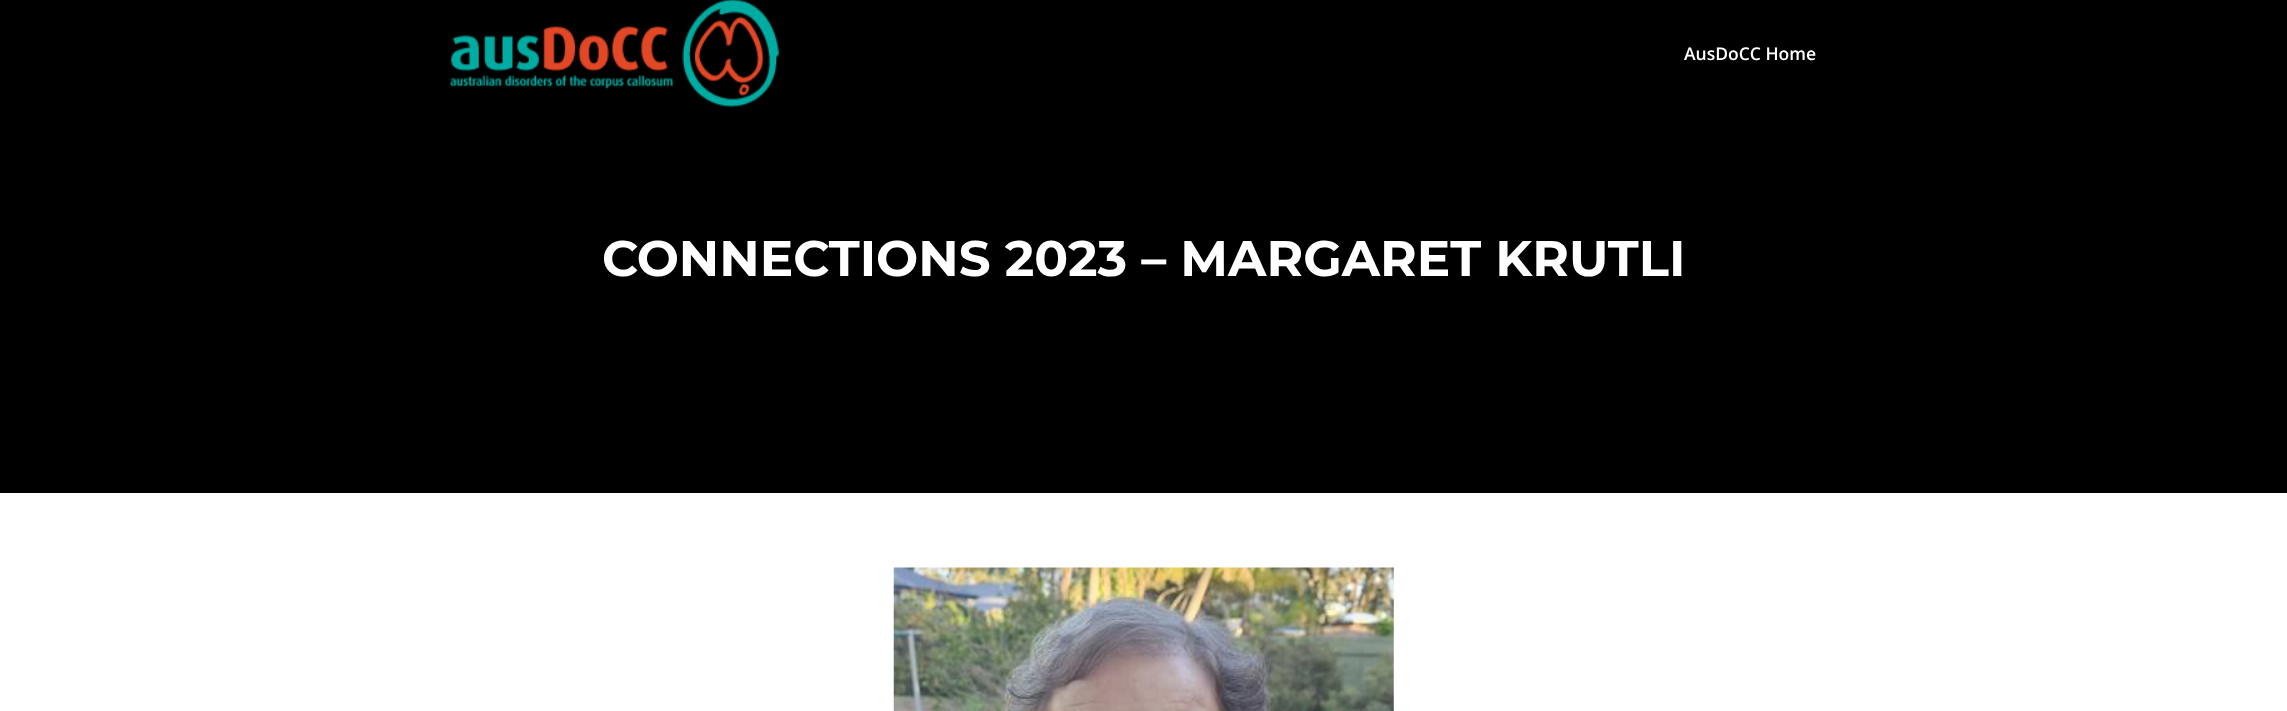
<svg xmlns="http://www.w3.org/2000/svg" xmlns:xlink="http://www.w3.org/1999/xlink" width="2287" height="711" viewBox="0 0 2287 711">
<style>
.cls-1{font:600 17.5px Open Sans;fill:#ffffff}
.cls-2{font:bold 50px Montserrat;fill:#ffffff}
</style>
<rect width="100%" height="100%" fill="#ffffff"/>
<rect fill="#000000" x="0" y="0" width="2287" height="493"/>
<image xlink:href="image0.png" x="450" y="0" width="329" height="108"/>
<image xlink:href="image1.png" x="893" y="567" width="501" height="144"/>
<text class="cls-1" x="1684" y="60">AusDoCC Home</text>
<text class="cls-2" x="602" y="276">CONNECTIONS 2023 – MARGARET KRUTLI</text>
</svg>
